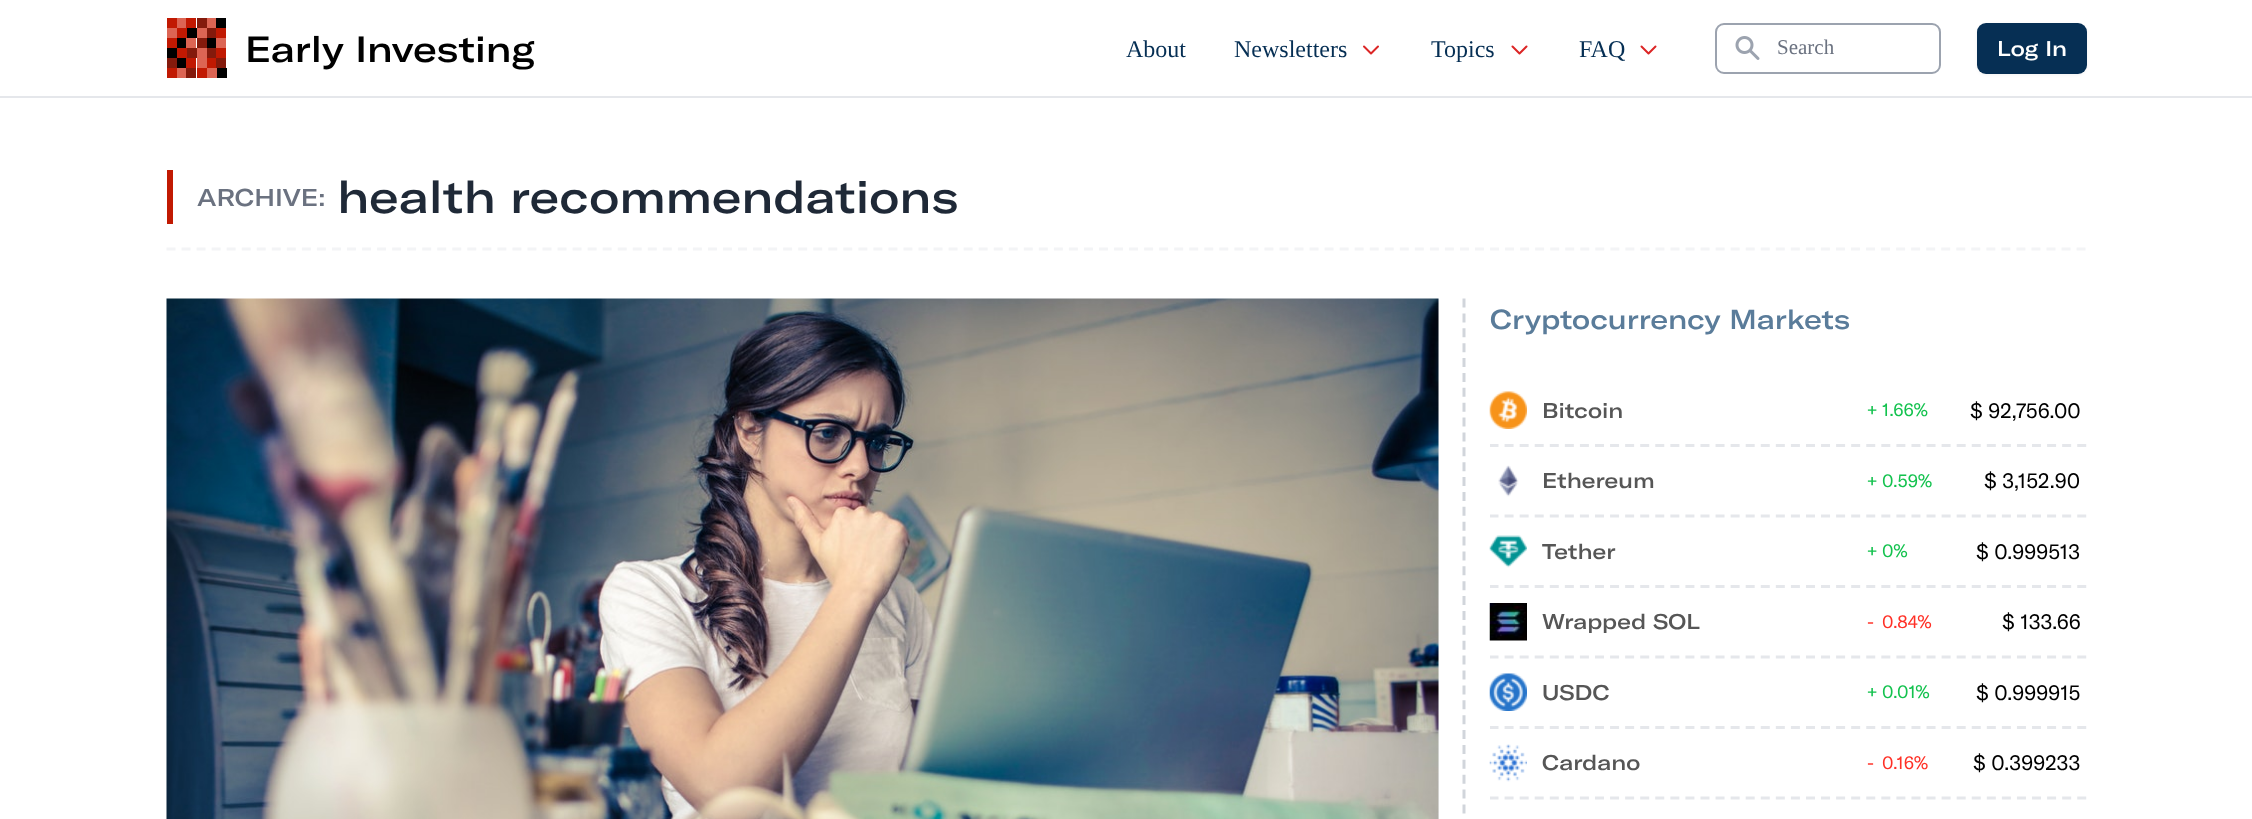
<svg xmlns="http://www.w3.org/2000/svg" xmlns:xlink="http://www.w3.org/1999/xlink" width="2252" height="819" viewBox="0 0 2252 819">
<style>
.cls-1{font:500 36px GT America;fill:#000000}
.cls-2{font:24px Liberation Serif;fill:#062f54}
.cls-3{font:21px Liberation Serif;fill:#6b7280}
.cls-4{font:500 21px GT America;fill:#ffffff}
.cls-5{font:500 24px GT America;fill:#6b7280}
.cls-6{font:500 45px GT America;fill:#1f2937}
.cls-7{font:500 27px GT America;fill:#5a7c9a}
.cls-8{font:500 21px GT America;fill:#565656}
.cls-9{font:18px GT America;fill:#13c24e}
.cls-10{font:21px GT America;fill:#000000}
.cls-11{font:18px GT America;fill:#ff3026}
</style>
<defs>
<clipPath id="clip1"><rect x="1490" y="377" width="597" height="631" rx="8"/></clipPath>
</defs>
<rect width="100%" height="100%" fill="#ffffff"/>
<rect fill="#e5e7eb" x="0" y="96" width="2252" height="2"/>
<image xlink:href="image0.png" x="167" y="18" width="60" height="60"/>
<path fill="none" stroke="#dc2626" stroke-width="2" stroke-linecap="round" stroke-linejoin="round" d="M1378 46.5L1371 53.5L1364 46.5"/>
<path fill="none" stroke="#dc2626" stroke-width="2" stroke-linecap="round" stroke-linejoin="round" d="M1526.5 46.5L1519.5 53.5L1512.5 46.5"/>
<path fill="none" stroke="#dc2626" stroke-width="2" stroke-linecap="round" stroke-linejoin="round" d="M1655.5 46.5L1648.5 53.5L1641.5 46.5"/>
<rect fill="none" stroke="#9ca3af" stroke-width="2" x="1716" y="24" width="224" height="49" rx="8"/>
<image xlink:href="image1.png" x="1735" y="36" width="25" height="24"/>
<rect fill="#000000" fill-opacity="0.05" filter="blur(1.5px)" x="1977" y="24" width="110" height="51" rx="9"/>
<rect fill="#062f54" x="1977" y="23" width="110" height="51" rx="9"/>
<path fill="none" stroke="#f3f4f6" stroke-width="3" stroke-dasharray="9 6.04" d="M166.5 249H2086.5"/>
<rect fill="#c11902" x="167" y="170" width="6" height="54"/>
<rect fill="#f3f4f6" x="1438" y="299" width="1" height="520"/>
<image xlink:href="image2.png" x="166" y="298" width="1273" height="521"/>
<path fill="none" stroke="#d1d5db" stroke-width="3" stroke-dasharray="9 5.88" d="M1464 298.5V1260"/>
<g clip-path="url(#clip1)">
<path fill="none" stroke="#e5e7eb" stroke-width="3" stroke-dasharray="9 6.07" d="M1489.5 445.5H2086.5"/>
</g>
<image xlink:href="image3.png" x="1489" y="391" width="38" height="38"/>
<g clip-path="url(#clip1)">
<path fill="none" stroke="#e5e7eb" stroke-width="3" stroke-dasharray="9 6.07" d="M1489.5 516H2086.5"/>
</g>
<image xlink:href="image4.png" x="1498" y="465" width="21" height="32"/>
<g clip-path="url(#clip1)">
<path fill="none" stroke="#e5e7eb" stroke-width="3" stroke-dasharray="9 6.07" d="M1489.5 586.5H2086.5"/>
</g>
<image xlink:href="image5.png" x="1489" y="535" width="38" height="33"/>
<g clip-path="url(#clip1)">
<path fill="none" stroke="#e5e7eb" stroke-width="3" stroke-dasharray="9 6.07" d="M1489.5 657H2086.5"/>
</g>
<image xlink:href="image6.png" x="1489" y="603" width="38" height="38"/>
<g clip-path="url(#clip1)">
<path fill="none" stroke="#e5e7eb" stroke-width="3" stroke-dasharray="9 6.07" d="M1489.5 727.5H2086.5"/>
</g>
<image xlink:href="image7.png" x="1489" y="673" width="38" height="38"/>
<g clip-path="url(#clip1)">
<path fill="none" stroke="#e5e7eb" stroke-width="3" stroke-dasharray="9 6.07" d="M1489.5 798H2086.5"/>
</g>
<image xlink:href="image8.png" x="1489" y="744" width="38" height="38"/>
<text class="cls-1" x="245" y="62">Early Investing</text>
<text class="cls-2" x="1126" y="57">About</text>
<text class="cls-2" x="1234" y="57">Newsletters</text>
<text class="cls-2" x="1431" y="57">Topics</text>
<text class="cls-2" x="1579" y="57">FAQ</text>
<text class="cls-3" x="1777" y="54">Search</text>
<text class="cls-4" x="1997" y="56">Log In</text>
<text class="cls-5" x="197" y="206">ARCHIVE:</text>
<text class="cls-6" x="337" y="213">health recommendations</text>
<text class="cls-7" x="1490" y="329">Cryptocurrency Markets</text>
<text class="cls-8" x="1542" y="418">Bitcoin</text>
<text class="cls-9" x="1867" y="416">+</text>
<text class="cls-9" x="1882" y="416">1.66%</text>
<text class="cls-10" x="1970" y="418">$ 92,756.00</text>
<text class="cls-8" x="1542" y="488">Ethereum</text>
<text class="cls-9" x="1867" y="487">+</text>
<text class="cls-9" x="1882" y="487">0.59%</text>
<text class="cls-10" x="1984" y="488">$ 3,152.90</text>
<text class="cls-8" x="1542" y="559">Tether</text>
<text class="cls-9" x="1867" y="557">+</text>
<text class="cls-9" x="1882" y="557">0%</text>
<text class="cls-10" x="1976" y="559">$ 0.999513</text>
<text class="cls-8" x="1542" y="629">Wrapped SOL</text>
<text class="cls-11" x="1867" y="628">-</text>
<text class="cls-11" x="1882" y="628">0.84%</text>
<text class="cls-10" x="2002" y="629">$ 133.66</text>
<text class="cls-8" x="1542" y="700">USDC</text>
<text class="cls-9" x="1867" y="698">+</text>
<text class="cls-9" x="1882" y="698">0.01%</text>
<text class="cls-10" x="1976" y="700">$ 0.999915</text>
<text class="cls-8" x="1542" y="770">Cardano</text>
<text class="cls-11" x="1867" y="769">-</text>
<text class="cls-11" x="1882" y="769">0.16%</text>
<text class="cls-10" x="1973" y="770">$ 0.399233</text>
</svg>
